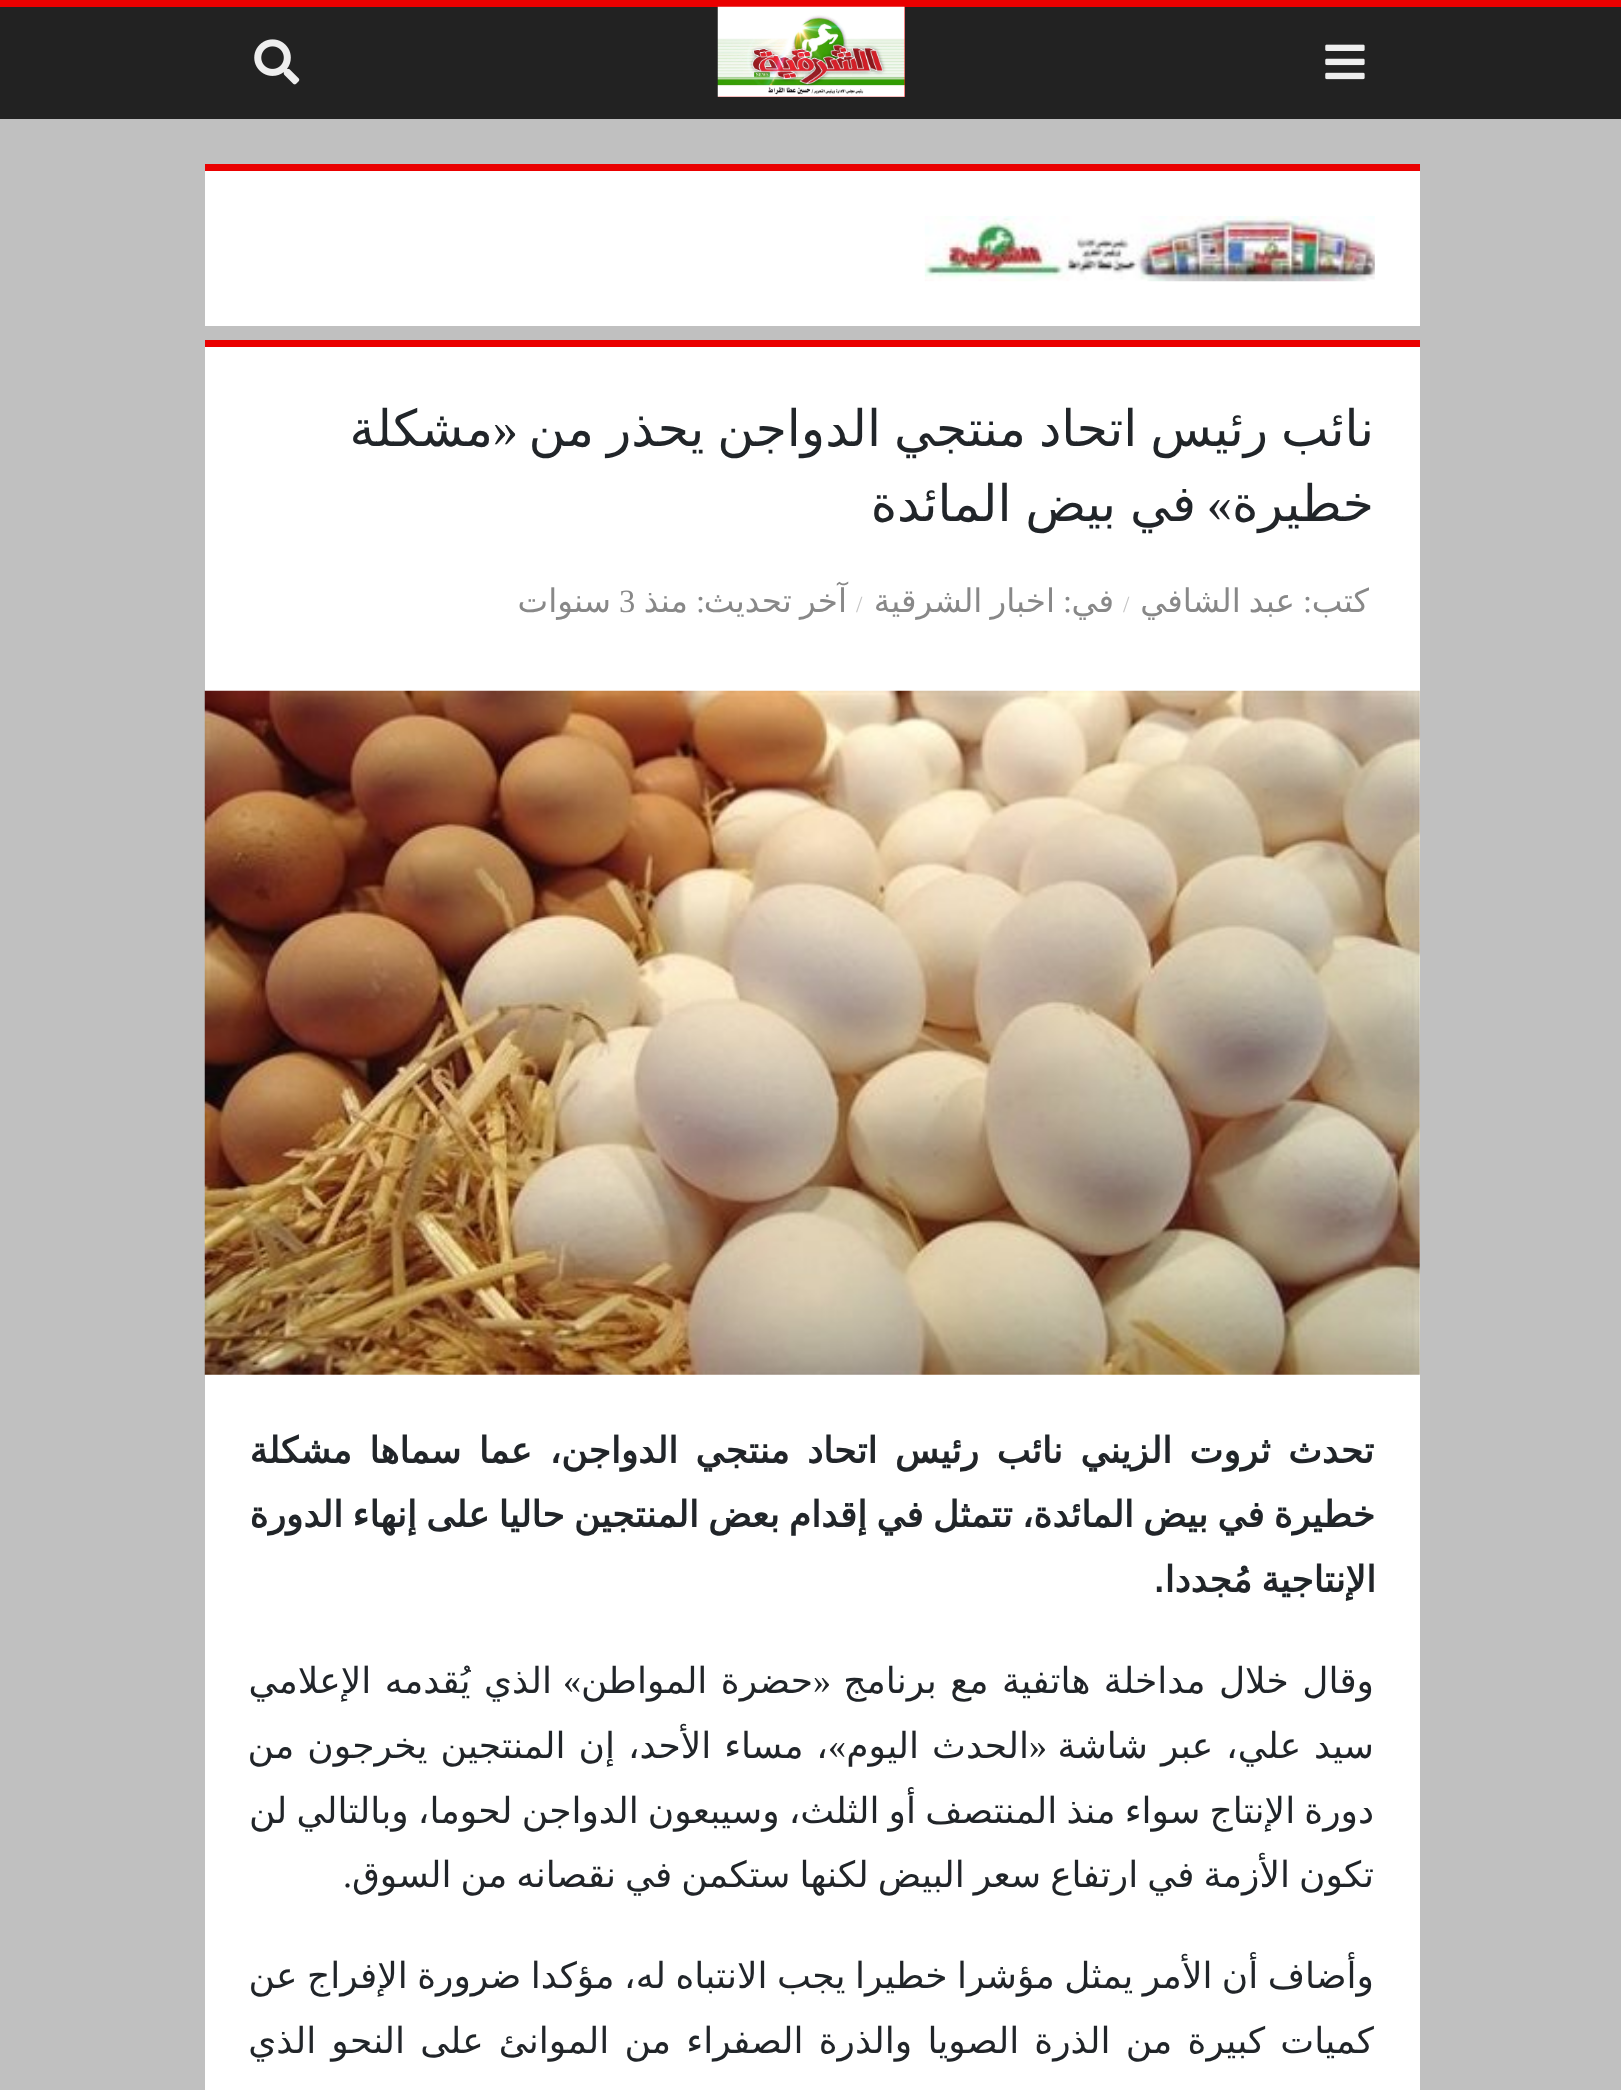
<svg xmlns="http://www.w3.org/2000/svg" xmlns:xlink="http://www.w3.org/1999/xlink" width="1621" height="2090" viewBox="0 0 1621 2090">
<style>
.cls-1{font:50.4px DejaVu Sans;direction:rtl;fill:#212529}
.cls-2{font:50.4px Liberation Serif;direction:rtl;fill:#212529}
.cls-3{font:32.5px DejaVu Sans;direction:rtl;fill:#888888}
.cls-4{font:32.5px Liberation Serif;fill:#888888}
.cls-5{font:23px Liberation Serif;fill:#c4c4c4}
.cls-6{font:bold 36px DejaVu Sans;direction:rtl;fill:#212529}
.cls-7{font:36px DejaVu Sans;direction:rtl;fill:#212529}
.cls-8{font:36px Liberation Serif;direction:rtl;fill:#212529}
</style>
<rect width="100%" height="100%" fill="#c0c0c0"/>
<rect fill="#222222" x="0" y="7" width="1621" height="112"/>
<rect fill="#ea0000" x="0" y="0" width="1621" height="7"/>
<image xlink:href="image0.png" x="1325" y="44" width="40" height="36"/>
<rect fill="#ea0000" x="718" y="7" width="187" height="90"/>
<image xlink:href="image1.png" x="717" y="6" width="188" height="91"/>
<image xlink:href="image2.png" x="254" y="39" width="46" height="46"/>
<rect fill="#ffffff" x="205" y="171" width="1215" height="155"/>
<rect fill="#ea0000" x="205" y="164" width="1215" height="7"/>
<image xlink:href="image3.png" x="924" y="216" width="451" height="66"/>
<rect fill="#ffffff" x="205" y="347" width="1215" height="1743"/>
<rect fill="#ea0000" x="205" y="340" width="1215" height="7"/>
<image xlink:href="image4.png" x="204" y="690" width="1216" height="685"/>
<text class="cls-1" x="1374" y="446" word-spacing="-3">نائب رئيس اتحاد منتجي الدواجن يحذر من</text>
<text class="cls-2" x="518" y="446">«</text>
<text class="cls-1" x="493" y="446">مشكلة</text>
<text class="cls-1" x="1374" y="521">خطيرة</text>
<text class="cls-2" x="1232" y="521">»</text>
<text class="cls-1" x="1196" y="521" word-spacing="-2.25">في بيض المائدة</text>
<text class="cls-3" x="1369" y="612">كتب</text>
<text class="cls-4" x="1303" y="612">:</text>
<text class="cls-3" x="1295" y="612" word-spacing="-2.25">عبد الشافي</text>
<text class="cls-5" x="1123" y="612">/</text>
<text class="cls-3" x="1114" y="612">في</text>
<text class="cls-4" x="1063" y="612">:</text>
<text class="cls-3" x="1055" y="612" word-spacing="-2.25">اخبار الشرقية</text>
<text class="cls-5" x="856" y="612">/</text>
<text class="cls-3" x="847" y="612" word-spacing="-2.25">آخر تحديث</text>
<text class="cls-4" x="696" y="612">:</text>
<text class="cls-3" x="688" y="612">منذ</text>
<text class="cls-4" x="619" y="612">3</text>
<text class="cls-3" x="611" y="612">سنوات</text>
<text class="cls-6" x="1374" y="1463" word-spacing="6">تحدث ثروت الزيني نائب رئيس اتحاد منتجي الدواجن، عما سماها مشكلة</text>
<text class="cls-6" x="1375" y="1527" word-spacing="-2.25">خطيرة في بيض المائدة، تتمثل في إقدام بعض المنتجين حاليا على إنهاء الدورة</text>
<text class="cls-6" x="1376" y="1592" word-spacing="-2.25">الإنتاجية مُجددا.</text>
<text class="cls-7" x="1374" y="1693" word-spacing="2">وقال خلال مداخلة هاتفية مع برنامج</text>
<text class="cls-8" x="831" y="1693">«</text>
<text class="cls-7" x="813" y="1693" word-spacing="2">حضرة المواطن</text>
<text class="cls-8" x="581" y="1693">»</text>
<text class="cls-7" x="552" y="1693" word-spacing="2">الذي يُقدمه الإعلامي</text>
<text class="cls-7" x="1374" y="1758" word-spacing="1.5">سيد علي، عبر شاشة</text>
<text class="cls-8" x="1047" y="1758">«</text>
<text class="cls-7" x="1029" y="1758" word-spacing="1.5">الحدث اليوم</text>
<text class="cls-8" x="846" y="1758">»</text>
<text class="cls-7" x="828" y="1758" word-spacing="1.5">، مساء الأحد، إن المنتجين يخرجون من</text>
<text class="cls-7"><tspan x="1374" y="1823" word-spacing="-2.25">دورة الإنتاج سواء منذ المنتصف أو الثلث، وسيبعون الدواجن لحوما، وبالتالي لن</tspan><tspan x="1374" y="1887" word-spacing="-2.4">تكون الأزمة في ارتفاع سعر البيض لكنها ستكمن في نقصانه من السوق</tspan></text>
<text class="cls-8" x="352" y="1887">.</text>
<text class="cls-7"><tspan x="1374" y="1988" word-spacing="-2">وأضاف أن الأمر يمثل مؤشرا خطيرا يجب الانتباه له، مؤكدا ضرورة الإفراج عن</tspan><tspan x="1374" y="2053" word-spacing="3.75">كميات كبيرة من الذرة الصويا والذرة الصفراء من الموانئ على النحو الذي</tspan></text>
</svg>
